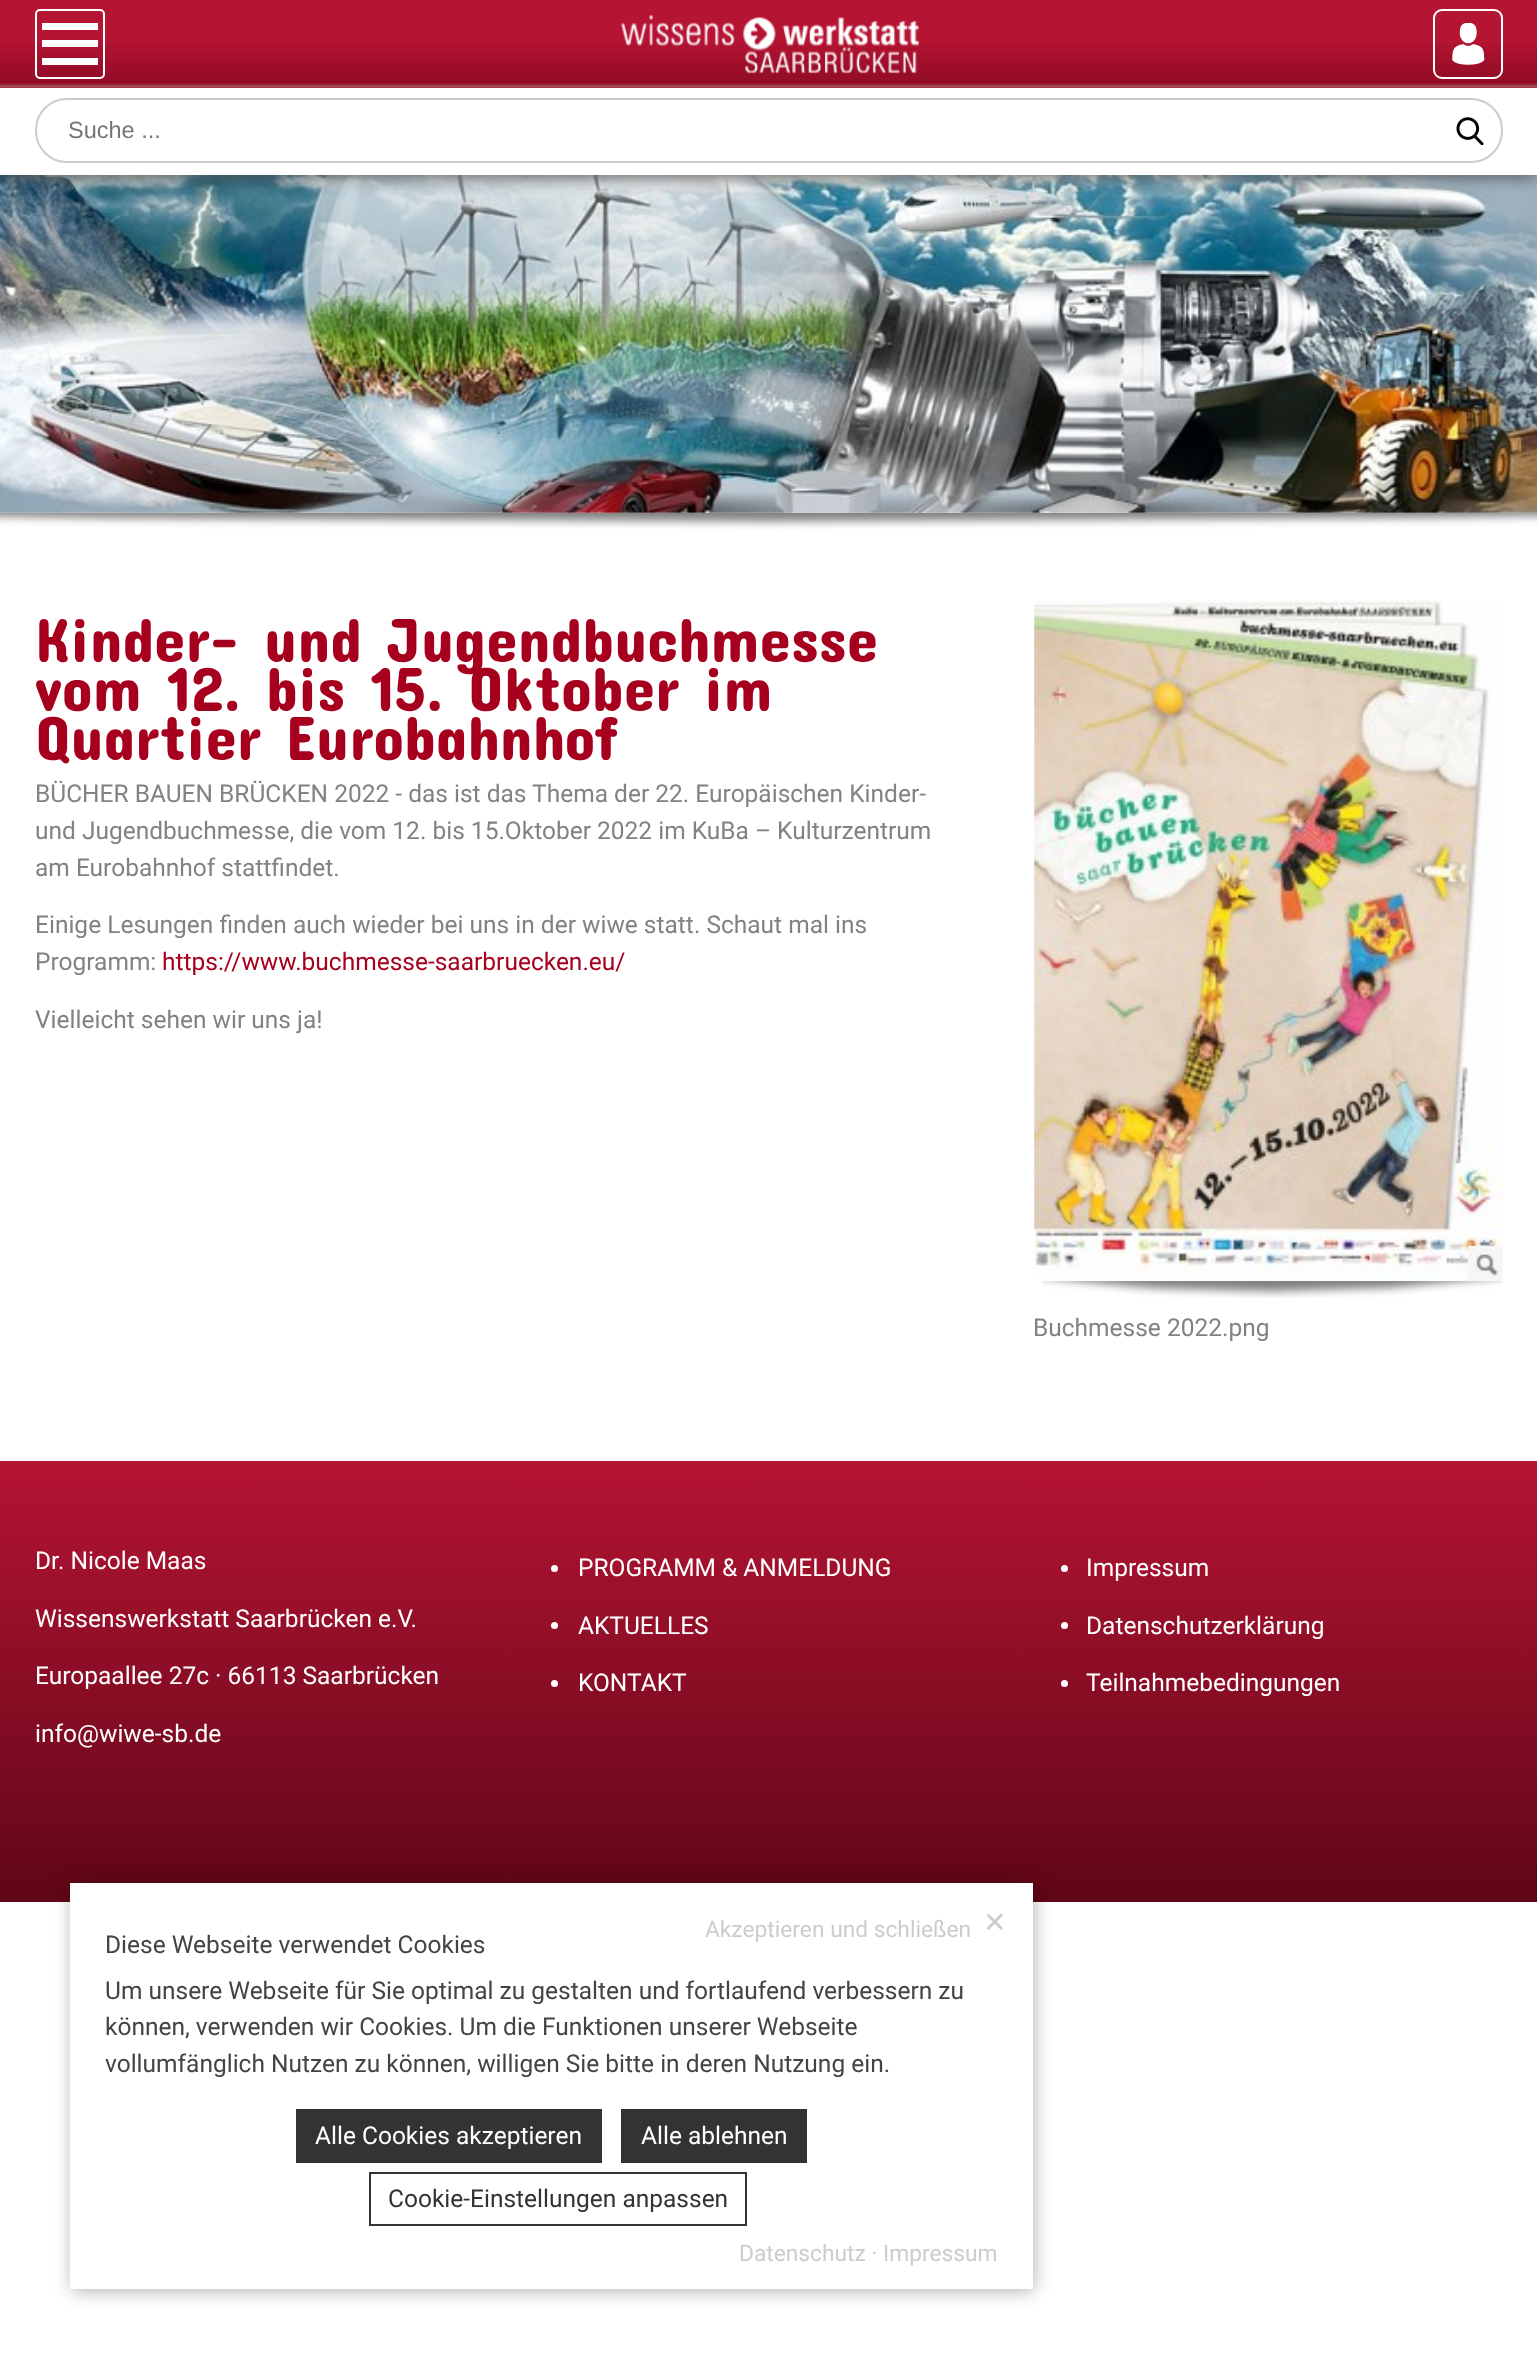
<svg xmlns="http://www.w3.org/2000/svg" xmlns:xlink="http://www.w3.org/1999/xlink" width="1537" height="2358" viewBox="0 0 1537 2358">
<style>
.cls-1{font:23.5px Liberation Sans;fill:#757575}
.cls-2{font:63px Concert One;fill:#a7001e}
.cls-3{font:24.5px Roboto;fill:#828282}
.cls-4{font:24.5px Roboto;fill:#a7001e}
.cls-5{font:24.5px Roboto;fill:#ffffff}
.cls-6{font:22.75px Roboto;fill:#cccccc}
.cls-7{font:28px DejaVu Sans;fill:#cccccc}
.cls-8{font:24.5px Roboto;fill:#444444}
.cls-9{font:24.5px Roboto;fill:#333333}
</style>
<defs>
<clipPath id="clip1"><rect x="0" y="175" width="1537" height="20"/></clipPath>
<linearGradient id="g1" gradientUnits="userSpaceOnUse" x1="769" y1="1461" x2="769" y2="1902"><stop offset="0" stop-color="#b51433"/><stop offset="1" stop-color="#5f0617"/></linearGradient>
</defs>
<rect width="100%" height="100%" fill="#ffffff"/>
<image xlink:href="image5.png" x="0" y="512" width="1537" height="17"/>
<image xlink:href="image4.png" x="0" y="175" width="1537" height="338"/>
<g clip-path="url(#clip1)">
<rect fill="#555555" filter="blur(9px)" x="0" y="2" width="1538" height="175"/>
</g>
<rect fill="#b51433" x="0" y="0" width="1537" height="88"/>
<image xlink:href="image0.png" x="0" y="43" width="1537" height="45"/>
<rect fill="none" stroke="#ffffff" stroke-width="2" x="36" y="10" width="68" height="68" rx="4"/>
<rect fill="#ffffff" x="42" y="23" width="56" height="7"/>
<rect fill="#ffffff" x="42" y="40" width="56" height="7"/>
<rect fill="#ffffff" x="42" y="58" width="56" height="7"/>
<image xlink:href="image1.png" x="621" y="15" width="298" height="59"/>
<rect fill="none" stroke="#ffffff" stroke-width="2" x="1434" y="10" width="68" height="68" rx="8"/>
<image xlink:href="image2.png" x="1452" y="23" width="33" height="42"/>
<rect fill="none" stroke="#cccccc" stroke-width="2" x="36" y="99" width="1466" height="63" rx="31"/>
<image xlink:href="image3.png" x="1456" y="117" width="28" height="28"/>
<image xlink:href="image6.png" x="1034" y="600" width="469" height="681"/>
<image xlink:href="image7.png" x="1468" y="1246" width="35" height="35"/>
<image xlink:href="image8.png" x="1041" y="1281" width="462" height="17"/>
<rect fill="url(#g1)" x="0" y="1461" width="1537" height="441"/>
<circle fill="#ffffff" cx="554.5" cy="1568.5" r="3.5"/>
<circle fill="#ffffff" cx="554.5" cy="1625.5" r="3.5"/>
<circle fill="#ffffff" cx="554.5" cy="1683.5" r="3.5"/>
<circle fill="#ffffff" cx="1064.5" cy="1568.5" r="3.5"/>
<circle fill="#ffffff" cx="1064.5" cy="1625.5" r="3.5"/>
<circle fill="#ffffff" cx="1064.5" cy="1683.5" r="3.5"/>
<rect fill="#000000" fill-opacity="0.3" filter="blur(9px)" x="72" y="1885" width="962" height="406"/>
<rect fill="#ffffff" x="70" y="1883" width="963" height="406"/>
<rect fill="#333333" x="296" y="2109" width="306" height="54"/>
<rect fill="#333333" x="621" y="2109" width="186" height="54"/>
<rect fill="none" stroke="#333333" stroke-width="2" x="370" y="2173" width="376" height="52"/>
<text class="cls-1" x="68" y="138">Suche ...</text>
<text class="cls-2"><tspan x="35" y="662">Kinder- und Jugendbuchmesse</tspan><tspan x="35" y="711">vom 12. bis 15. Oktober im</tspan><tspan x="35" y="760">Quartier Eurobahnhof</tspan></text>
<text class="cls-3"><tspan x="35" y="802">BÜCHER BAUEN BRÜCKEN 2022 - das ist das Thema der 22. Europäischen Kinder-</tspan><tspan x="35" y="839">und Jugendbuchmesse, die vom 12. bis 15.Oktober 2022 im KuBa – Kulturzentrum</tspan><tspan x="35" y="876">am Eurobahnhof stattfindet.</tspan></text>
<text class="cls-3"><tspan x="35" y="933">Einige Lesungen finden auch wieder bei uns in der wiwe statt. Schaut mal ins</tspan><tspan x="35" y="970">Programm:</tspan></text>
<text class="cls-4" x="162" y="970">https://www.buchmesse-saarbruecken.eu/</text>
<text class="cls-3" x="35" y="1028">Vielleicht sehen wir uns ja!</text>
<text class="cls-3" x="1033" y="1336">Buchmesse 2022.png</text>
<text class="cls-5" x="35" y="1569">Dr. Nicole Maas</text>
<text class="cls-5" x="35" y="1627">Wissenswerkstatt Saarbrücken e.V.</text>
<text class="cls-5" x="35" y="1684">Europaallee 27c · 66113 Saarbrücken</text>
<text class="cls-5" x="35" y="1742">info@wiwe-sb.de</text>
<text class="cls-5" x="578" y="1576">PROGRAMM &amp; ANMELDUNG</text>
<text class="cls-5" x="578" y="1634">AKTUELLES</text>
<text class="cls-5" x="578" y="1691">KONTAKT</text>
<text class="cls-5" x="1086" y="1576">Impressum</text>
<text class="cls-5" x="1086" y="1634">Datenschutzerklärung</text>
<text class="cls-5" x="1086" y="1691">Teilnahmebedingungen</text>
<text class="cls-6" x="705" y="1937">Akzeptieren und schließen</text>
<text class="cls-7" x="983" y="1932">✕</text>
<text class="cls-8"><tspan x="105" y="1953">Diese Webseite verwendet Cookies</tspan><tspan x="105" y="1999">Um unsere Webseite für Sie optimal zu gestalten und fortlaufend verbessern zu</tspan><tspan x="105" y="2035">können, verwenden wir Cookies. Um die Funktionen unserer Webseite</tspan><tspan x="105" y="2072">vollumfänglich Nutzen zu können, willigen Sie bitte in deren Nutzung ein.</tspan></text>
<text class="cls-5" x="315" y="2144">Alle Cookies akzeptieren</text>
<text class="cls-5" x="641" y="2144">Alle ablehnen</text>
<text class="cls-9" x="388" y="2207">Cookie-Einstellungen anpassen</text>
<text class="cls-6" x="739" y="2261">Datenschutz · Impressum</text>
</svg>
